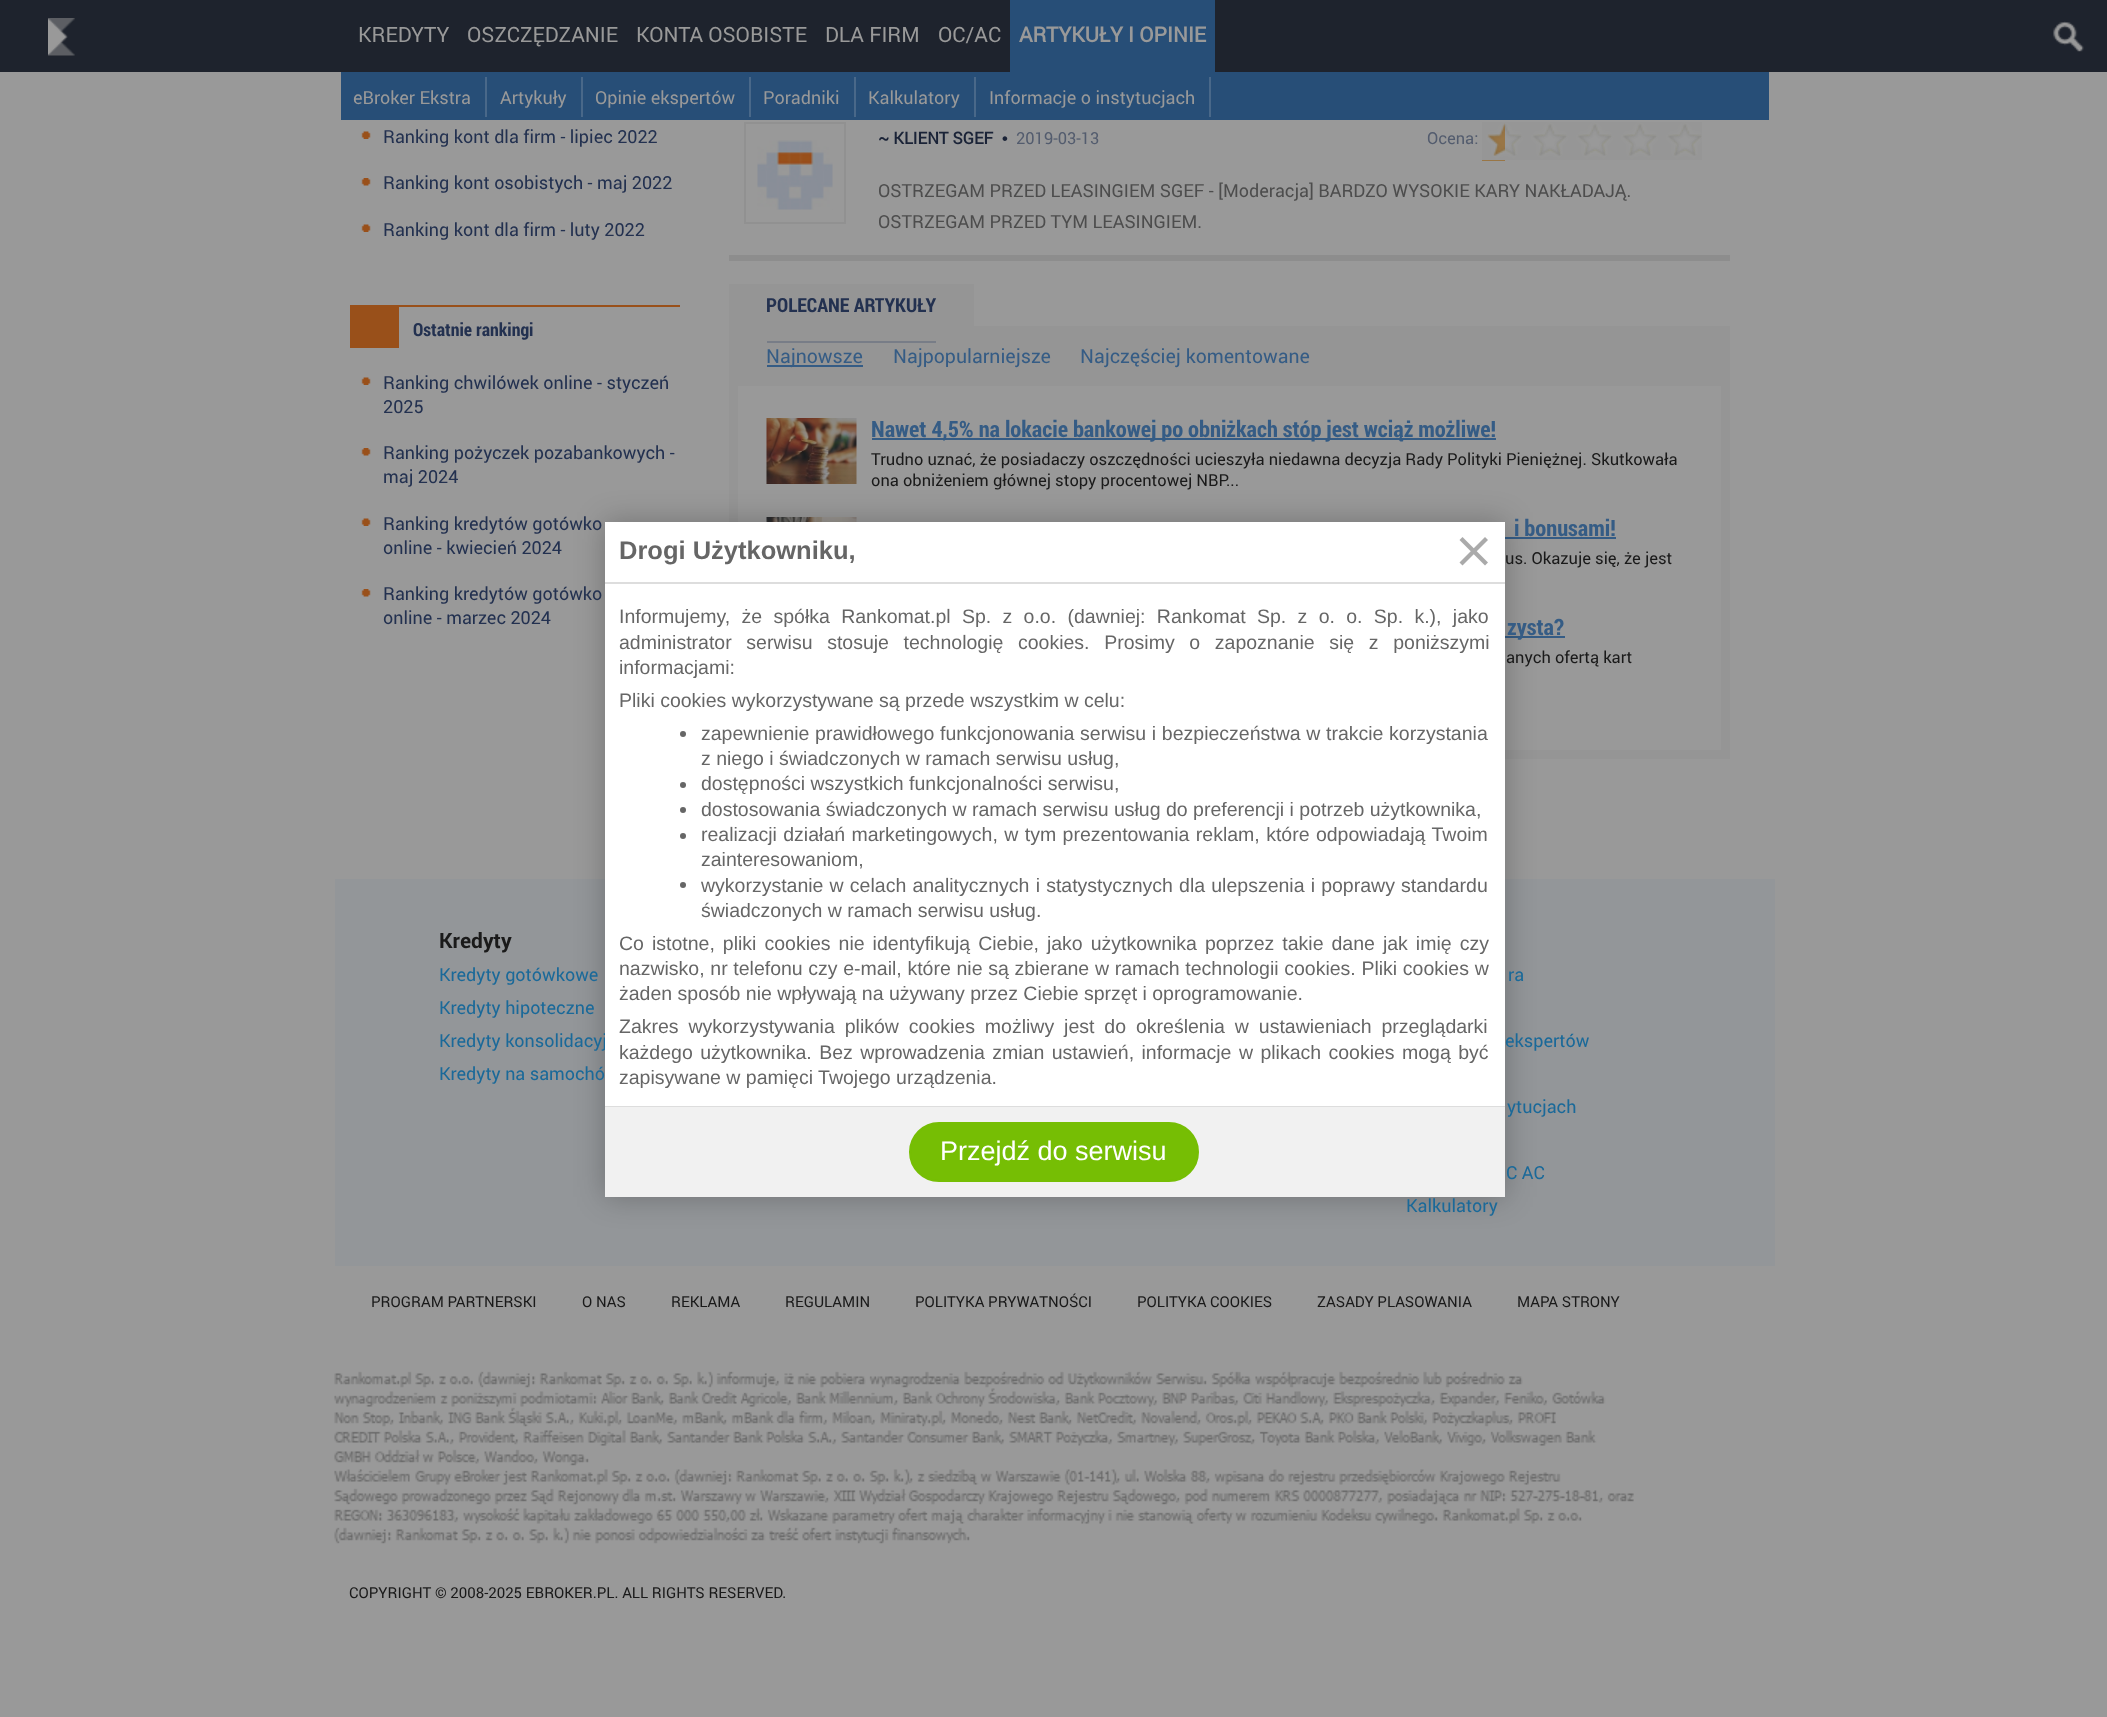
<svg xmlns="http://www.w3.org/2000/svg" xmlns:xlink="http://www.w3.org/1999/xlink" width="2107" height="1717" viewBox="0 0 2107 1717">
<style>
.cls-1{font:bold 21px Roboto;fill:#999999}
.cls-2{font:18px Roboto;fill:#999999}
.cls-3{font:21px Roboto;fill:#999999}
.cls-4{font:18px Roboto;fill:#233150}
.cls-5{font:bold 18px Roboto Condensed;fill:#233150}
.cls-6{font:bold 16.5px Roboto;fill:#1a2337}
.cls-7{font:bold 16.5px Liberation Sans;fill:#1a2337}
.cls-8{font:16.5px Roboto;fill:#535c6e}
.cls-9{font:18px Roboto;fill:#4d4d4d}
.cls-10{font:bold 19.5px Roboto Condensed;fill:#233150}
.cls-11{font:19.5px Roboto;fill:#355c85}
.cls-12{font:bold 22.5px Roboto Condensed;fill:#355c85}
.cls-13{font:16.5px Roboto;fill:#1a1a1a}
.cls-14{font:27px Liberation Sans;fill:#ffffff}
.cls-15{font:bold 21px 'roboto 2';fill:#1a1a1a}
.cls-16{font:18px Roboto;fill:#1a6999}
.cls-17{font:19.5px Liberation Sans;fill:#666666}
.cls-18{font:bold 25.5px Liberation Sans;fill:#666666}
.cls-19{font:15px Roboto;fill:#1a1a1a}
</style>
<rect width="100%" height="100%" fill="#999999"/>
<rect fill="#1e232d" x="0" y="0" width="2107" height="72"/>
<image xlink:href="image0.png" x="48" y="18" width="27" height="38"/>
<rect fill="#274e77" x="1010" y="0" width="205" height="72"/>
<rect fill="#274e77" x="341" y="72" width="1428" height="48"/>
<rect fill="#496889" x="485" y="77" width="2" height="40"/>
<rect fill="#496889" x="581" y="77" width="2" height="40"/>
<rect fill="#496889" x="749" y="77" width="2" height="40"/>
<rect fill="#496889" x="854" y="77" width="2" height="40"/>
<rect fill="#496889" x="974" y="77" width="2" height="40"/>
<rect fill="#496889" x="1209" y="77" width="2" height="40"/>
<image xlink:href="image1.png" x="2053" y="21" width="31" height="31"/>
<image xlink:href="image2.png" x="361" y="131" width="10" height="8"/>
<image xlink:href="image3.png" x="361" y="178" width="10" height="8"/>
<image xlink:href="image2.png" x="361" y="224" width="10" height="8"/>
<rect fill="#99501a" x="350" y="305" width="330" height="2"/>
<rect fill="#99501a" x="350" y="307" width="49" height="41"/>
<image xlink:href="image2.png" x="361" y="377" width="10" height="8"/>
<image xlink:href="image3.png" x="361" y="448" width="10" height="8"/>
<image xlink:href="image2.png" x="361" y="518" width="10" height="8"/>
<image xlink:href="image3.png" x="361" y="589" width="10" height="8"/>
<rect fill="#8d8d8d" x="729" y="255" width="1001" height="6"/>
<rect fill="none" stroke="#919191" stroke-width="2" x="745" y="123" width="100" height="100"/>
<image xlink:href="image4.png" x="757" y="140" width="76" height="70"/>
<rect fill="#997646" x="1482" y="122" width="23" height="39"/>
<image xlink:href="image5.png" x="1482" y="122" width="220" height="38"/>
<rect fill="#959595" x="729" y="326" width="1001" height="433"/>
<rect fill="#959595" x="729" y="284" width="245" height="42"/>
<rect fill="#787d87" x="767" y="341" width="169" height="2"/>
<rect fill="#355c85" x="767" y="365" width="96" height="2"/>
<rect fill="#999999" x="738" y="386" width="983" height="364"/>
<image xlink:href="image6.png" x="766" y="418" width="91" height="66"/>
<rect fill="#355c85" x="872" y="438" width="624" height="2"/>
<image xlink:href="image7.png" x="766" y="517" width="91" height="5"/>
<rect fill="#355c85" x="1505" y="537" width="111" height="2"/>
<rect fill="#355c85" x="1505" y="636" width="60" height="2"/>
<rect fill="#939699" x="335" y="879" width="1440" height="387"/>
<rect fill="#000000" fill-opacity="0.25" filter="blur(15px)" x="605" y="522" width="900" height="675"/>
<rect fill="#dddddd" x="605" y="1106" width="900" height="1"/>
<rect fill="#f1f1f1" x="605" y="1107" width="900" height="90"/>
<rect fill="#76be04" stroke="#76be04" stroke-width="2" x="910" y="1123" width="288" height="58" rx="29"/>
<image xlink:href="image8.png" x="334" y="1371" width="1300" height="173"/>
<text class="cls-1" x="1019" y="42">ARTYKUŁY I OPINIE</text>
<text class="cls-2" x="353" y="104">eBroker Ekstra</text>
<text class="cls-2" x="500" y="104">Artykuły</text>
<text class="cls-2" x="595" y="104">Opinie ekspertów</text>
<text class="cls-2" x="763" y="104">Poradniki</text>
<text class="cls-2" x="868" y="104">Kalkulatory</text>
<text class="cls-2" x="989" y="104">Informacje o instytucjach</text>
<text class="cls-3" x="358" y="42">KREDYTY</text>
<text class="cls-3" x="467" y="42">OSZCZĘDZANIE</text>
<text class="cls-3" x="636" y="42">KONTA OSOBISTE</text>
<text class="cls-3" x="825" y="42">DLA FIRM</text>
<text class="cls-3" x="938" y="42">OC/AC</text>
<text class="cls-4" x="383" y="143">Ranking kont dla firm - lipiec 2022</text>
<text class="cls-4" x="383" y="189">Ranking kont osobistych - maj 2022</text>
<text class="cls-4" x="383" y="236">Ranking kont dla firm - luty 2022</text>
<text class="cls-5" x="413" y="336">Ostatnie rankingi</text>
<text class="cls-4"><tspan x="383" y="389">Ranking chwilówek online - styczeń</tspan><tspan x="383" y="413">2025</tspan></text>
<text class="cls-4"><tspan x="383" y="459">Ranking pożyczek pozabankowych -</tspan><tspan x="383" y="483">maj 2024</tspan></text>
<text class="cls-4"><tspan x="383" y="530">Ranking kredytów gotówko</tspan><tspan x="383" y="554">online - kwiecień 2024</tspan></text>
<text class="cls-4"><tspan x="383" y="600">Ranking kredytów gotówko</tspan><tspan x="383" y="624">online - marzec 2024</tspan></text>
<text class="cls-6" x="878" y="144">~ KLIENT SGEF</text>
<text class="cls-7" x="1002" y="144">•</text>
<text class="cls-8" x="1016" y="144">2019-03-13</text>
<text class="cls-8" x="1427" y="144">Ocena:</text>
<text class="cls-9"><tspan x="878" y="197">OSTRZEGAM PRZED LEASINGIEM SGEF - [Moderacja] BARDZO WYSOKIE KARY NAKŁADAJĄ.</tspan><tspan x="878" y="228">OSTRZEGAM PRZED TYM LEASINGIEM.</tspan></text>
<text class="cls-10" x="766" y="312">POLECANE ARTYKUŁY</text>
<text class="cls-11" x="766" y="363">Najnowsze</text>
<text class="cls-11" x="893" y="363">Najpopularniejsze</text>
<text class="cls-11" x="1080" y="363">Najczęściej komentowane</text>
<text class="cls-12" x="871" y="437">Nawet 4,5% na lokacie bankowej po obniżkach stóp jest wciąż możliwe!</text>
<text class="cls-13"><tspan x="871" y="465">Trudno uznać, że posiadaczy oszczędności ucieszyła niedawna decyzja Rady Polityki Pieniężnej. Skutkowała</tspan><tspan x="871" y="486">ona obniżeniem głównej stopy procentowej NBP...</tspan></text>
<text class="cls-12" x="1514" y="536">i bonusami!</text>
<text class="cls-13" x="1505" y="564">us. Okazuje się, że jest</text>
<text class="cls-12" x="1507" y="635">zysta?</text>
<text class="cls-13" x="1506" y="663">anych ofertą kart</text>
<text class="cls-14" x="940" y="1160">Przejdź do serwisu</text>
<text class="cls-15" x="439" y="948">Kredyty</text>
<text class="cls-16"><tspan x="439" y="981">Kredyty gotówkowe</tspan><tspan x="439" y="1014">Kredyty hipoteczne</tspan><tspan x="439" y="1047">Kredyty konsolidacyj</tspan></text>
<rect fill="#ffffff" x="605" y="522" width="900" height="584"/>
<path fill="#aaaaaa" d="M1462.5 537L1488 562.5L1485 565.5L1459.5 540Z"/>
<path fill="#aaaaaa" d="M1459.5 562.5L1485 537L1488 540L1462.5 565.5Z"/>
<text class="cls-17" x="619" y="1084">zapisywane w pamięci Twojego urządzenia.</text>
<text class="cls-17" x="619" y="1059" word-spacing="2">każdego użytkownika. Bez wprowadzenia zmian ustawień, informacje w plikach cookies mogą być</text>
<text class="cls-17" x="619" y="1033" word-spacing="4.5">Zakres wykorzystywania plików cookies możliwy jest do określenia w ustawieniach przeglądarki</text>
<text class="cls-17" x="619" y="1000">żaden sposób nie wpływają na używany przez Ciebie sprzęt i oprogramowanie.</text>
<text class="cls-17" x="619" y="975" word-spacing="0.25">nazwisko, nr telefonu czy e-mail, które nie są zbierane w ramach technologii cookies. Pliki cookies w</text>
<text class="cls-17" x="619" y="950" word-spacing="2.6">Co istotne, pliki cookies nie identyfikują Ciebie, jako użytkownika poprzez takie dane jak imię czy</text>
<text class="cls-17" x="701" y="917">świadczonych w ramach serwisu usług.</text>
<text class="cls-17" x="701" y="892" word-spacing="0.75">wykorzystanie w celach analitycznych i statystycznych dla ulepszenia i poprawy standardu</text>
<circle fill="#666666" cx="683" cy="885" r="3"/>
<text class="cls-17" x="701" y="866">zainteresowaniom,</text>
<text class="cls-17" x="701" y="841" word-spacing="1">realizacji działań marketingowych, w tym prezentowania reklam, które odpowiadają Twoim</text>
<circle fill="#666666" cx="683" cy="836" r="3"/>
<text class="cls-17" x="701" y="816">dostosowania świadczonych w ramach serwisu usług do preferencji i potrzeb użytkownika,</text>
<circle fill="#666666" cx="683" cy="810" r="3"/>
<text class="cls-17" x="701" y="790">dostępności wszystkich funkcjonalności serwisu,</text>
<circle fill="#666666" cx="683" cy="785" r="3"/>
<text class="cls-17" x="701" y="765">z niego i świadczonych w ramach serwisu usług,</text>
<text class="cls-17" x="701" y="740" word-spacing="0.25">zapewnienie prawidłowego funkcjonowania serwisu i bezpieczeństwa w trakcie korzystania</text>
<circle fill="#666666" cx="683" cy="734" r="3"/>
<text class="cls-17" x="619" y="707">Pliki cookies wykorzystywane są przede wszystkim w celu:</text>
<text class="cls-17" x="619" y="674">informacjami:</text>
<text class="cls-17" x="619" y="649" word-spacing="9.25">administrator serwisu stosuje technologię cookies. Prosimy o zapoznanie się z poniższymi</text>
<text class="cls-17" x="619" y="623" word-spacing="5.9">Informujemy, że spółka Rankomat.pl Sp. z o.o. (dawniej: Rankomat Sp. z o. o. Sp. k.), jako</text>
<rect fill="#dddddd" x="605" y="582" width="900" height="2"/>
<text class="cls-18" x="619" y="559">Drogi Użytkowniku,</text>
<text class="cls-16" x="439" y="1080">Kredyty na samochó</text>
<text class="cls-16" x="1508" y="981">ra</text>
<text class="cls-16" x="1505" y="1047">ekspertów</text>
<text class="cls-16" x="1507" y="1113">ytucjach</text>
<text class="cls-16" x="1506" y="1179">C AC</text>
<text class="cls-16" x="1406" y="1212">Kalkulatory</text>
<text class="cls-19" x="371" y="1307">PROGRAM PARTNERSKI</text>
<text class="cls-19" x="582" y="1307">O NAS</text>
<text class="cls-19" x="671" y="1307">REKLAMA</text>
<text class="cls-19" x="785" y="1307">REGULAMIN</text>
<text class="cls-19" x="915" y="1307">POLITYKA PRYWATNOŚCI</text>
<text class="cls-19" x="1137" y="1307">POLITYKA COOKIES</text>
<text class="cls-19" x="1317" y="1307">ZASADY PLASOWANIA</text>
<text class="cls-19" x="1517" y="1307">MAPA STRONY</text>
<text class="cls-19" x="349" y="1598">COPYRIGHT © 2008-2025 EBROKER.PL. ALL RIGHTS RESERVED.</text>
</svg>
